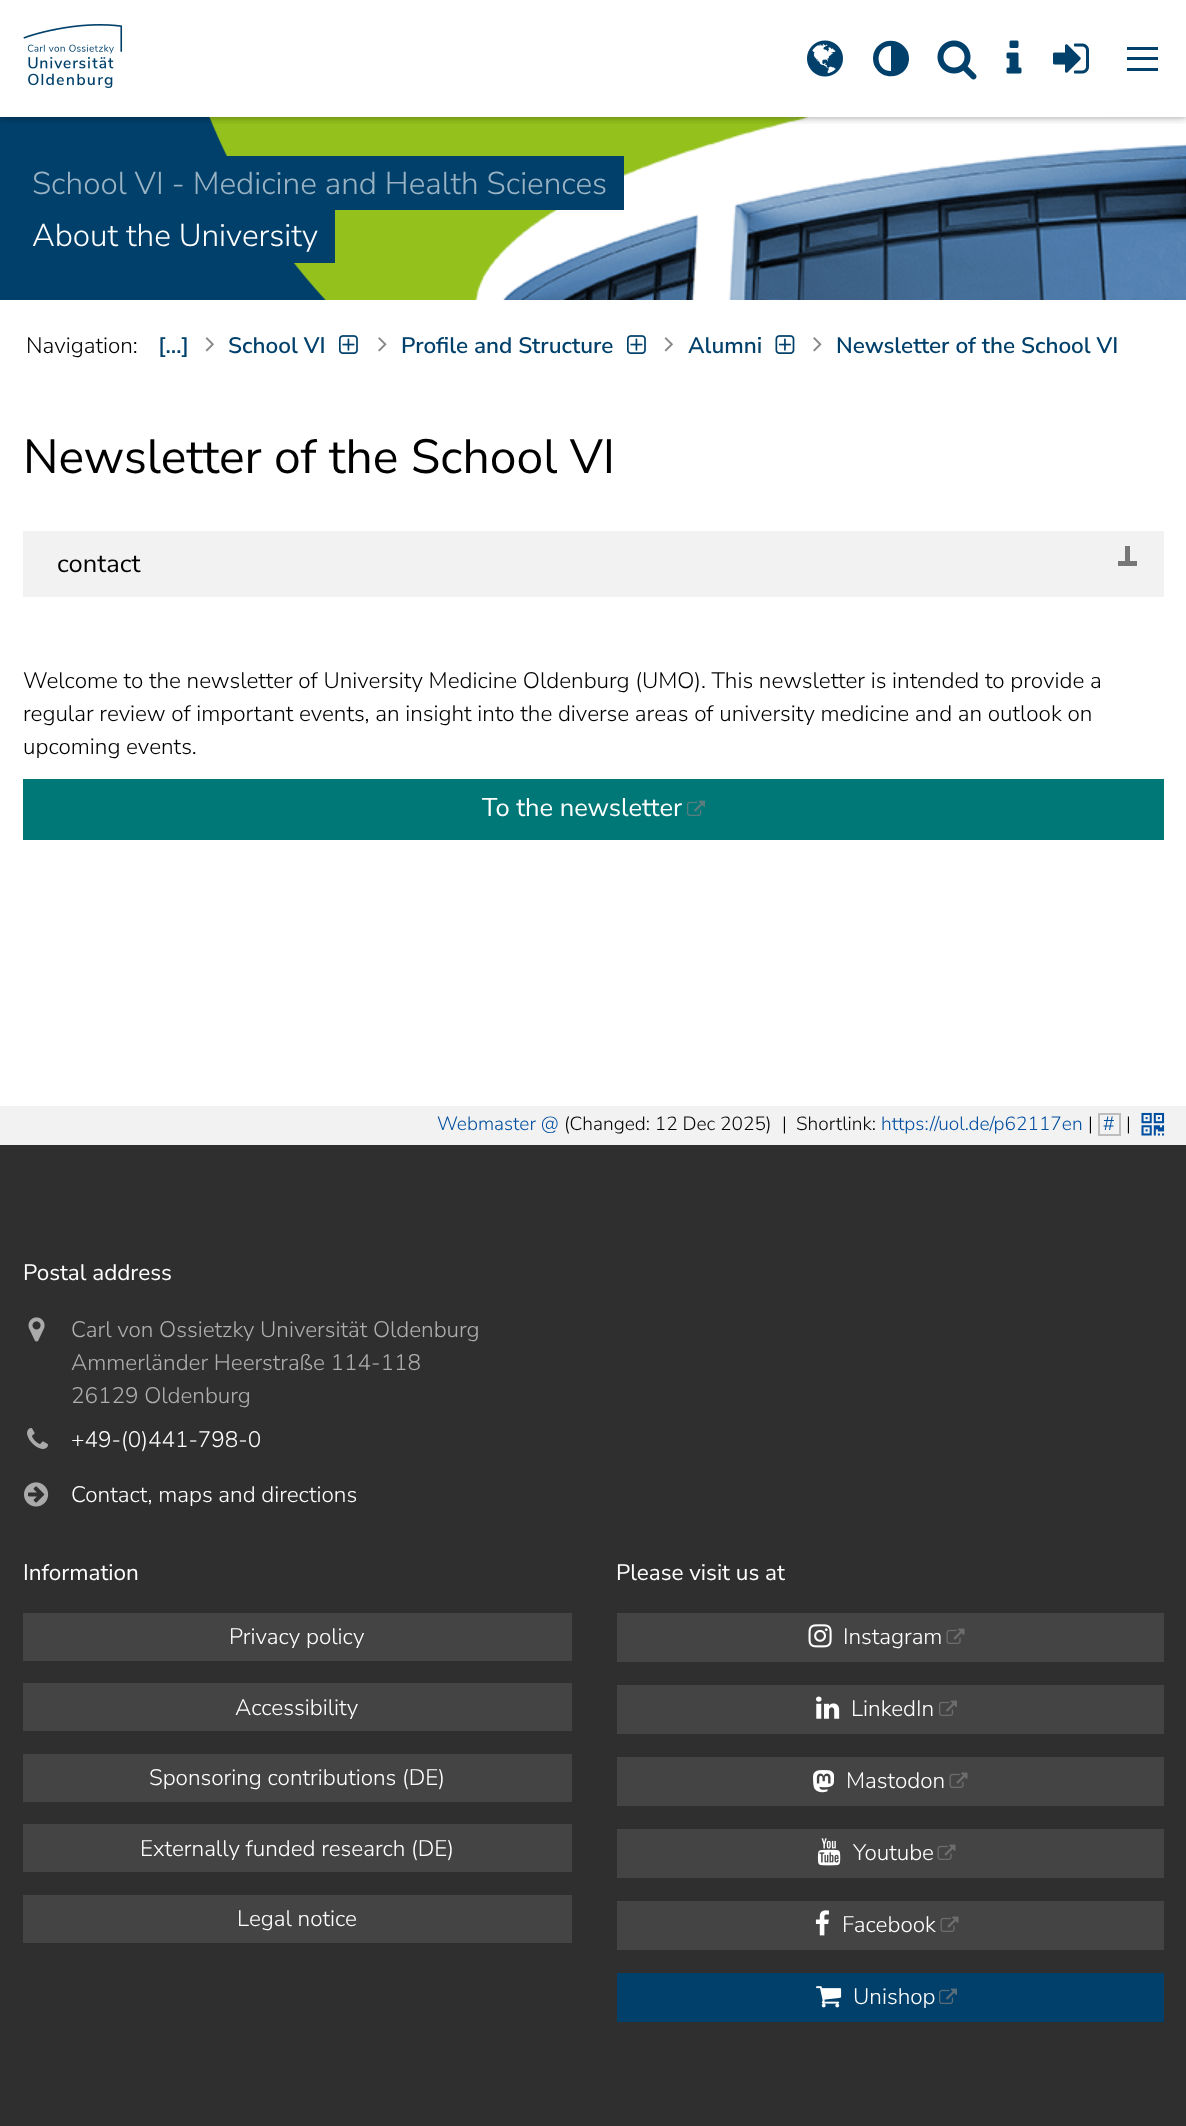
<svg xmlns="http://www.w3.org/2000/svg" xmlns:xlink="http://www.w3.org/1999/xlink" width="1186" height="2126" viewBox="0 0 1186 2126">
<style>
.cls-1{font:300 31.5px Nunito Sans;fill:#99b3c4}
.cls-2{font:300 31.5px Nunito Sans;fill:#ffffff}
.cls-3{font:300 22.5px Nunito Sans;fill:#000000}
.cls-4{font:600 22.5px Nunito Sans;fill:#00406b}
.cls-5{font:48px Nunito Sans;fill:#000000}
.cls-6{font:25.5px Nunito Sans;fill:#000000}
.cls-7{font:25.5px Nunito Sans;fill:#ffffff}
.cls-8{font:300 19.1px Nunito Sans;fill:#004e9f}
.cls-9{font:300 19.1px Nunito Sans;fill:#000000}
.cls-10{font:22.5px Nunito Sans;fill:#ffffff}
.cls-11{font:300 22.5px Nunito Sans;fill:#afafaf}
.cls-12{font:300 22.5px Nunito Sans;fill:#ffffff}
</style>
<defs>
<clipPath id="clip1"><rect x="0" y="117" width="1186" height="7"/></clipPath>
</defs>
<rect width="100%" height="100%" fill="#ffffff"/>
<rect fill="#00406b" x="0" y="117" width="326" height="183"/>
<image xlink:href="image5.png" x="209" y="117" width="977" height="183"/>
<g clip-path="url(#clip1)">
<rect fill="#000000" fill-opacity="0.4" filter="blur(4.5px)" x="0" y="0" width="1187" height="117"/>
</g>
<image xlink:href="image0.png" x="23" y="24" width="100" height="64"/>
<image xlink:href="image1.png" x="807" y="40" width="36" height="37"/>
<path fill="#00406b" d="M891 71V46C874.5 46 874.5 71 891 71ZM906.5 49.5C908.5 52.5 909 56 909 59.5C908 77.5 884.5 82.5 875.5 67.5C873.5 64.5 873 61 873 57.5C874 39.5 897.5 34.5 906.5 49.5Z"/>
<image xlink:href="image2.png" x="937" y="40" width="40" height="40"/>
<image xlink:href="image3.png" x="1006" y="40" width="16" height="34"/>
<image xlink:href="image4.png" x="1053" y="43" width="36" height="31"/>
<rect fill="#00406b" x="1127" y="57" width="31" height="3"/>
<rect fill="#00406b" x="1127" y="47" width="31" height="3"/>
<rect fill="#00406b" x="1127" y="68" width="31" height="3"/>
<rect fill="#00406b" x="226" y="156" width="398" height="54"/>
<rect fill="#00406b" x="256" y="210" width="79" height="53"/>
<image xlink:href="image6.png" x="205" y="337" width="9" height="15"/>
<image xlink:href="image7.png" x="339" y="335" width="19" height="19"/>
<image xlink:href="image8.png" x="378" y="337" width="9" height="15"/>
<image xlink:href="image7.png" x="627" y="335" width="19" height="19"/>
<image xlink:href="image6.png" x="664" y="337" width="9" height="15"/>
<image xlink:href="image9.png" x="775" y="335" width="20" height="19"/>
<image xlink:href="image8.png" x="813" y="337" width="9" height="15"/>
<rect fill="#f2f2f2" x="23" y="531" width="1141" height="66"/>
<rect fill="#777777" x="1125" y="546" width="5" height="20"/>
<rect fill="#777777" x="1118" y="561" width="19" height="5"/>
<rect fill="#007878" x="23" y="779" width="1141" height="61"/>
<image xlink:href="image10.png" x="687" y="800" width="18" height="16"/>
<rect fill="#f2f2f2" x="0" y="1106" width="1186" height="39"/>
<rect fill="none" stroke="#bdbdbd" stroke-width="2" x="1099" y="1114" width="21" height="21"/>
<image xlink:href="image11.png" x="1141" y="1112" width="24" height="24"/>
<rect fill="#2f2f2f" x="0" y="1145" width="1186" height="981"/>
<image xlink:href="image12.png" x="28" y="1317" width="17" height="25"/>
<image xlink:href="image13.png" x="27" y="1428" width="21" height="21"/>
<image xlink:href="image14.png" x="24" y="1482" width="25" height="25"/>
<rect fill="#444444" x="23" y="1613" width="549" height="48"/>
<rect fill="#444444" x="23" y="1683" width="549" height="48"/>
<rect fill="#444444" x="23" y="1754" width="549" height="48"/>
<rect fill="#444444" x="23" y="1824" width="549" height="48"/>
<rect fill="#444444" x="23" y="1895" width="549" height="48"/>
<rect fill="#444444" x="617" y="1613" width="547" height="49"/>
<image xlink:href="image15.png" x="808" y="1624" width="24" height="24"/>
<image xlink:href="image16.png" x="946" y="1628" width="19" height="16"/>
<rect fill="#444444" x="617" y="1685" width="547" height="49"/>
<image xlink:href="image17.png" x="816" y="1696" width="24" height="23"/>
<image xlink:href="image18.png" x="939" y="1700" width="18" height="16"/>
<rect fill="#444444" x="617" y="1757" width="547" height="49"/>
<image xlink:href="image19.png" x="813" y="1770" width="21" height="23"/>
<image xlink:href="image16.png" x="949" y="1772" width="19" height="16"/>
<rect fill="#444444" x="617" y="1829" width="547" height="49"/>
<image xlink:href="image20.png" x="817" y="1838" width="24" height="28"/>
<image xlink:href="image16.png" x="937" y="1844" width="19" height="16"/>
<rect fill="#444444" x="617" y="1901" width="547" height="49"/>
<image xlink:href="image21.png" x="815" y="1910" width="14" height="26"/>
<image xlink:href="image16.png" x="940" y="1916" width="19" height="16"/>
<rect fill="#00406b" x="617" y="1973" width="547" height="49"/>
<image xlink:href="image22.png" x="816" y="1986" width="26" height="22"/>
<image xlink:href="image23.png" x="939" y="1988" width="18" height="16"/>
<text class="cls-1" x="32" y="194">School VI - Medicine and Health Sciences</text>
<text class="cls-2" x="32" y="246">About the University</text>
<text class="cls-3" x="26" y="353">Navigation:</text>
<text class="cls-4" x="158" y="353">[…]</text>
<text class="cls-4" x="228" y="353">School VI</text>
<text class="cls-4" x="401" y="353">Profile and Structure</text>
<text class="cls-4" x="688" y="353">Alumni</text>
<text class="cls-4" x="836" y="353">Newsletter of the School VI</text>
<text class="cls-5" x="23" y="473">Newsletter of the School VI</text>
<text class="cls-6" x="57" y="572">contact</text>
<text class="cls-3"><tspan x="23" y="688">Welcome to the newsletter of University Medicine Oldenburg (UMO). This newsletter is intended to provide a</tspan><tspan x="23" y="721">regular review of important events, an insight into the diverse areas of university medicine and an outlook on</tspan><tspan x="23" y="754">upcoming events.</tspan></text>
<text class="cls-7" x="482" y="816">To the newsletter</text>
<text class="cls-8" x="437" y="1130">Webmaster @</text>
<text class="cls-9" x="564" y="1130">(Changed: 12 Dec 2025)</text>
<text class="cls-9" x="782" y="1130">|</text>
<text class="cls-9" x="796" y="1130">Shortlink:</text>
<text class="cls-8" x="881" y="1130">https://uol.de/p62117en</text>
<text class="cls-9" x="1088" y="1130">|</text>
<text class="cls-8" x="1103" y="1130">#</text>
<text class="cls-9" x="1126" y="1130">|</text>
<text class="cls-10" x="23" y="1280">Postal address</text>
<text class="cls-11"><tspan x="71" y="1337">Carl von Ossietzky Universität Oldenburg</tspan><tspan x="71" y="1370">Ammerländer Heerstraße 114-118</tspan><tspan x="71" y="1403">26129 Oldenburg</tspan></text>
<text class="cls-12" x="71" y="1447">+49-(0)441-798-0</text>
<text class="cls-12" x="71" y="1502">Contact, maps and directions</text>
<text class="cls-10" x="23" y="1580">Information</text>
<text class="cls-12" x="229" y="1644">Privacy policy</text>
<text class="cls-12" x="235" y="1715">Accessibility</text>
<text class="cls-12" x="149" y="1785">Sponsoring contributions (DE)</text>
<text class="cls-12" x="140" y="1856">Externally funded research (DE)</text>
<text class="cls-12" x="237" y="1926">Legal notice</text>
<text class="cls-10" x="616" y="1580">Please visit us at</text>
<text class="cls-12" x="843" y="1644">Instagram</text>
<text class="cls-12" x="851" y="1716">LinkedIn</text>
<text class="cls-12" x="846" y="1788">Mastodon</text>
<text class="cls-12" x="853" y="1860">Youtube</text>
<text class="cls-12" x="842" y="1932">Facebook</text>
<text class="cls-12" x="853" y="2004">Unishop</text>
</svg>
